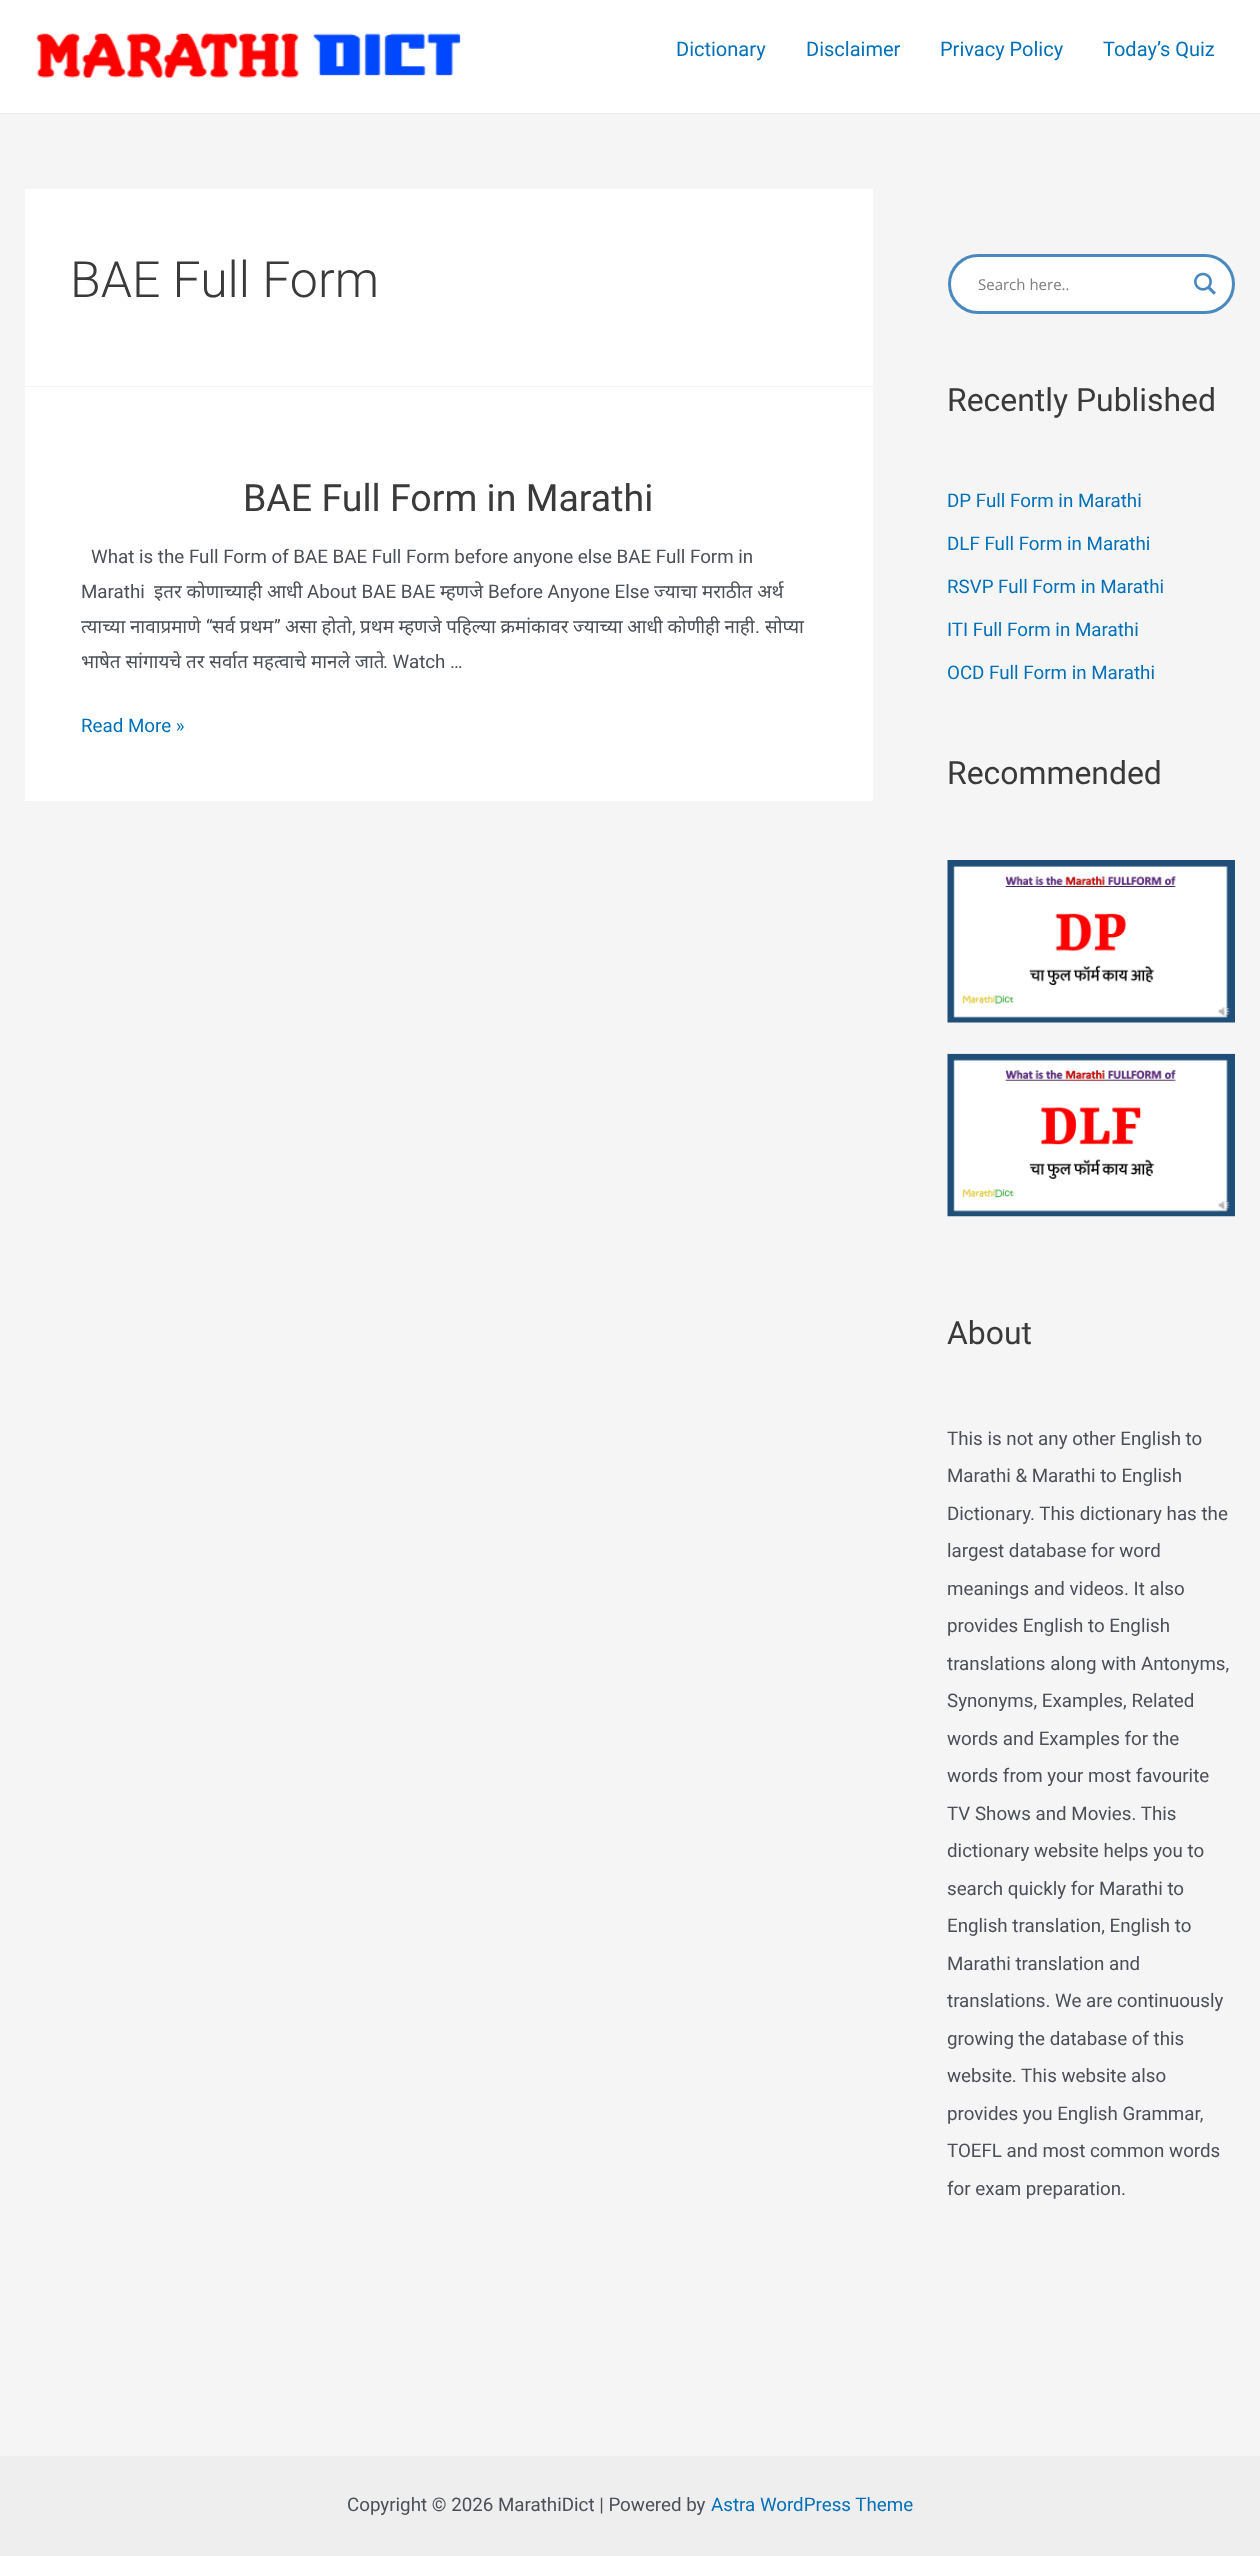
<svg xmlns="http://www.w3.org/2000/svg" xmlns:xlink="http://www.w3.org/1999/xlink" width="1260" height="2556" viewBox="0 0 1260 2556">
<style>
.cls-1{font:20px Roboto;fill:#0170b9}
.cls-2{font:300 50px Roboto;fill:#3a3a3a}
.cls-3{font:37.5px Roboto;fill:#3a3a3a}
.cls-4{font:18.75px Roboto;fill:#4b4f58}
.cls-5{font:18.75px Noto Sans;fill:#4b4f58}
.cls-6{font:18.75px Roboto;fill:#0170b9}
.cls-7{font:15px Open Sans;fill:#7d7d7d}
.cls-8{font:31.9px Roboto;fill:#3a3a3a}
</style>
<rect width="100%" height="100%" fill="#f5f5f5"/>
<rect fill="#ffffff" x="0" y="0" width="1260" height="113"/>
<rect fill="#eaeaea" x="0" y="113" width="1260" height="1"/>
<image xlink:href="image0.png" x="36" y="33" width="425" height="45"/>
<rect fill="#ffffff" x="25" y="189" width="848" height="612"/>
<rect fill="#f2f5f7" x="25" y="386" width="848" height="1"/>
<rect fill="#ffffff" stroke="#4a89bf" stroke-width="3" x="949.5" y="255.5" width="284" height="57" rx="28.5"/>
<image xlink:href="image1.png" x="1194" y="272" width="22" height="23"/>
<image xlink:href="image2.png" x="947" y="860" width="288" height="163"/>
<image xlink:href="image3.png" x="947" y="1053" width="288" height="164"/>
<rect fill="#eeeeee" x="0" y="2456" width="1260" height="100"/>
<text class="cls-1" x="676" y="56">Dictionary</text>
<text class="cls-1" x="806" y="56">Disclaimer</text>
<text class="cls-1" x="940" y="56">Privacy Policy</text>
<text class="cls-1" x="1103" y="56">Today’s Quiz</text>
<text class="cls-2" x="70" y="297">BAE Full Form</text>
<text class="cls-3" x="243" y="511">BAE Full Form in Marathi</text>
<text class="cls-4" x="91" y="563">What is the Full Form of BAE BAE Full Form before anyone else BAE Full Form in</text>
<text class="cls-4" x="81" y="598">Marathi</text>
<text class="cls-5" x="154" y="598">इतर कोणाच्याही आधी</text>
<text class="cls-4" x="307" y="598">About BAE BAE</text>
<text class="cls-5" x="440" y="598">म्हणजे</text>
<text class="cls-4" x="488" y="598">Before Anyone Else</text>
<text class="cls-5" x="654" y="598">ज्याचा मराठीत अर्थ</text>
<text class="cls-5" x="81" y="633" word-spacing="-0.25">त्याच्या नावाप्रमाणे</text>
<text class="cls-4" x="206" y="633">“</text>
<text class="cls-5" x="212" y="633" word-spacing="-0.25">सर्व प्रथम</text>
<text class="cls-4" x="274" y="633">”</text>
<text class="cls-5" x="285" y="633" word-spacing="-0.25">असा होतो</text>
<text class="cls-5" x="360" y="633" word-spacing="-0.25">प्रथम म्हणजे पहिल्या क्रमांकावर ज्याच्या आधी कोणीही नाही</text>
<text class="cls-5" x="765" y="633">सोप्या</text>
<text class="cls-4" x="352" y="633">,</text>
<text class="cls-4" x="755" y="633">.</text>
<text class="cls-5" x="81" y="668">भाषेत सांगायचे तर सर्वात महत्वाचे मानले जाते</text>
<text class="cls-4" x="383" y="668">. Watch …</text>
<text class="cls-6" x="81" y="732">Read More »</text>
<text class="cls-7" x="978" y="290">Search here..</text>
<text class="cls-8" x="947" y="411">Recently Published</text>
<text class="cls-6" x="947" y="507">DP Full Form in Marathi</text>
<text class="cls-6" x="947" y="550">DLF Full Form in Marathi</text>
<text class="cls-6" x="947" y="593">RSVP Full Form in Marathi</text>
<text class="cls-6" x="947" y="636">ITI Full Form in Marathi</text>
<text class="cls-6" x="947" y="679">OCD Full Form in Marathi</text>
<text class="cls-8" x="947" y="784">Recommended</text>
<text class="cls-8" x="947" y="1344">About</text>
<text class="cls-4"><tspan x="947" y="1445">This is not any other English to</tspan><tspan x="947" y="1482">Marathi &amp; Marathi to English</tspan></text>
<text class="cls-4"><tspan x="947" y="1520">Dictionary. This dictionary has the</tspan><tspan x="947" y="1557">largest database for word</tspan></text>
<text class="cls-4"><tspan x="947" y="1595">meanings and videos. It also</tspan><tspan x="947" y="1632">provides English to English</tspan></text>
<text class="cls-4"><tspan x="947" y="1670">translations along with Antonyms,</tspan><tspan x="947" y="1707">Synonyms, Examples, Related</tspan></text>
<text class="cls-4"><tspan x="947" y="1745">words and Examples for the</tspan><tspan x="947" y="1782">words from your most favourite</tspan></text>
<text class="cls-4"><tspan x="947" y="1820">TV Shows and Movies. This</tspan><tspan x="947" y="1857">dictionary website helps you to</tspan></text>
<text class="cls-4"><tspan x="947" y="1895">search quickly for Marathi to</tspan><tspan x="947" y="1932">English translation, English to</tspan></text>
<text class="cls-4"><tspan x="947" y="1970">Marathi translation and</tspan><tspan x="947" y="2007">translations. We are continuously</tspan></text>
<text class="cls-4"><tspan x="947" y="2045">growing the database of this</tspan><tspan x="947" y="2082">website. This website also</tspan></text>
<text class="cls-4"><tspan x="947" y="2120">provides you English Grammar,</tspan><tspan x="947" y="2157">TOEFL and most common words</tspan></text>
<text class="cls-4" x="947" y="2195">for exam preparation.</text>
<text class="cls-4" x="347" y="2511">Copyright © 2026 MarathiDict | Powered by</text>
<text class="cls-6" x="711" y="2511">Astra WordPress Theme</text>
</svg>
